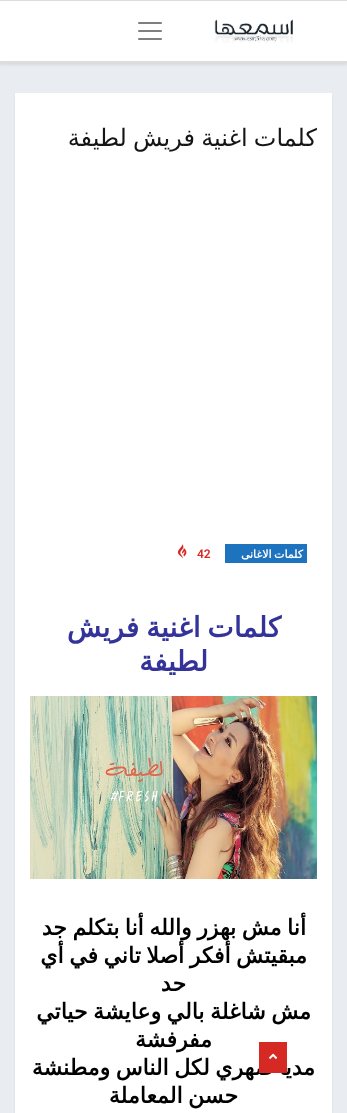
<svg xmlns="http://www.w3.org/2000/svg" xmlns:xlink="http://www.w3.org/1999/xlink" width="347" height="1113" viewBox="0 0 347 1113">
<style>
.cls-1{font:24px DejaVu Sans;direction:rtl;fill:#151515}
.cls-2{font:bold 11px DejaVu Sans;letter-spacing:0.5px;direction:rtl;fill:#ffffff}
.cls-3{font:600 12px Roboto;fill:#d72924}
.cls-4{font:bold 28px DejaVu Sans;direction:rtl;fill:#333399}
.cls-5{font:bold 22px DejaVu Sans;direction:rtl;fill:#000000}
</style>
<rect width="100%" height="100%" fill="#e9edf2"/>
<rect fill="#000000" fill-opacity="0.08" filter="blur(1px)" x="0" y="2" width="347" height="63"/>
<rect fill="#ffffff" x="0" y="1" width="347" height="60"/>
<rect fill="#dddddd" x="0" y="0" width="347" height="1"/>
<rect fill="#dddddd" x="0" y="61" width="347" height="2"/>
<image xlink:href="image0.png" x="214" y="19" width="79" height="24"/>
<image xlink:href="image1.png" x="138" y="22" width="24" height="18"/>
<rect fill="#000000" fill-opacity="0.08" filter="blur(1px)" x="15" y="95" width="317" height="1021"/>
<rect fill="#ffffff" x="15" y="93" width="317" height="1020"/>
<rect fill="#1e73be" x="225" y="544" width="82" height="19"/>
<image xlink:href="image2.png" x="177" y="544" width="10" height="15"/>
<image xlink:href="image3.png" x="30" y="696" width="287" height="183"/>
<text class="cls-1" x="317" y="146" word-spacing="-1.5">كلمات اغنية فريش لطيفة</text>
<text class="cls-2" x="303" y="558" word-spacing="-1">كلمات الاغانى</text>
<text class="cls-3" x="197" y="558">42</text>
<text class="cls-4" x="281" y="637" word-spacing="-2">كلمات اغنية فريش</text>
<text class="cls-4" x="208" y="671">لطيفة</text>
<text class="cls-5" x="306" y="935" word-spacing="-1.5">أنا مش بهزر والله أنا بتكلم جد</text>
<text class="cls-5" x="307" y="963" word-spacing="-1.5">مبقيتش أفكر أصلا تاني في أي</text>
<text class="cls-5" x="186" y="991">حد</text>
<text class="cls-5" x="311" y="1019" word-spacing="-1.5">مش شاغلة بالي وعايشة حياتي</text>
<text class="cls-5" x="212" y="1047">مفرفشة</text>
<text class="cls-5" x="315" y="1075" word-spacing="-1.5">مديا ضهري لكل الناس ومطنشة</text>
<text class="cls-5" x="238" y="1103" word-spacing="-1.5">حسن المعاملة</text>
<rect fill="#d72924" x="259" y="1042" width="28" height="31"/>
<image xlink:href="image4.png" x="269" y="1053" width="9" height="6"/>
</svg>
